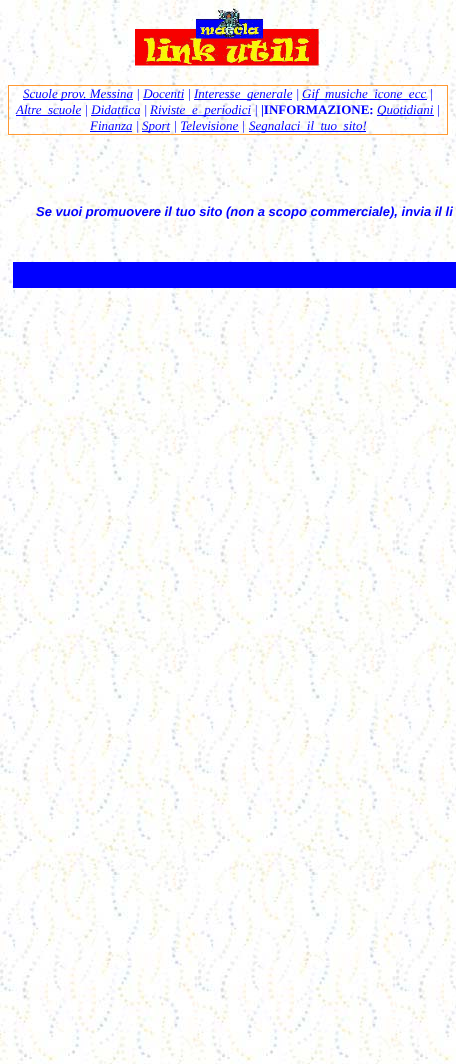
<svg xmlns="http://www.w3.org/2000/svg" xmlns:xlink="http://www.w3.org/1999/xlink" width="456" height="1064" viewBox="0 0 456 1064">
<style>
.cls-1{font:italic 13px Liberation Serif;fill:#0000ff}
.cls-2{font:bold 13px Liberation Serif;fill:#0000ff}
.cls-3{font:italic bold 13px Liberation Sans;fill:#0000ff}
</style>
<rect width="100%" height="100%" fill="#ffffff"/>
<image xlink:href="image0.png" x="0" y="0" width="456" height="1064"/>
<image xlink:href="image1.png" x="135" y="8" width="185" height="61"/>
<rect fill="#ff9933" x="8" y="85" width="440" height="1"/>
<rect fill="#ff9933" x="447" y="85" width="1" height="50"/>
<rect fill="#ff9933" x="8" y="134" width="440" height="1"/>
<rect fill="#ff9933" x="8" y="85" width="1" height="50"/>
<rect fill="#0000ff" x="23" y="99" width="110" height="1"/>
<rect fill="#0000ff" x="143" y="99" width="41" height="1"/>
<rect fill="#0000ff" x="194" y="99" width="98" height="1"/>
<rect fill="#0000ff" x="302" y="99" width="125" height="1"/>
<rect fill="#0000ff" x="16" y="115" width="65" height="1"/>
<rect fill="#0000ff" x="91" y="115" width="49" height="1"/>
<rect fill="#0000ff" x="150" y="115" width="101" height="1"/>
<rect fill="#0000ff" x="377" y="115" width="57" height="1"/>
<rect fill="#0000ff" x="90" y="131" width="42" height="1"/>
<rect fill="#0000ff" x="142" y="131" width="28" height="1"/>
<rect fill="#0000ff" x="181" y="131" width="58" height="1"/>
<rect fill="#0000ff" x="249" y="131" width="117" height="1"/>
<rect fill="#0000ff" x="13" y="262" width="443" height="26"/>
<text class="cls-1" x="23" y="98">Scuole prov. Messina | Docenti |</text>
<text class="cls-1" x="194" y="98">Interesse_generale |</text>
<text class="cls-1" x="302" y="98">Gif_musiche_icone_ecc |</text>
<text class="cls-1" x="16" y="114">Altre_scuole | Didattica |</text>
<text class="cls-1" x="150" y="114">Riviste_e_periodici |</text>
<text class="cls-2" x="261" y="114">|INFORMAZIONE:</text>
<text class="cls-1" x="377" y="114">Quotidiani |</text>
<text class="cls-1" x="90" y="130">Finanza |</text>
<text class="cls-1" x="142" y="130">Sport | Televisione |</text>
<text class="cls-1" x="249" y="130">Segnalaci_il_tuo_sito!</text>
<text class="cls-3" x="36" y="216">Se vuoi promuovere il tuo sito (non a scopo commerciale), invia il li</text>
</svg>
